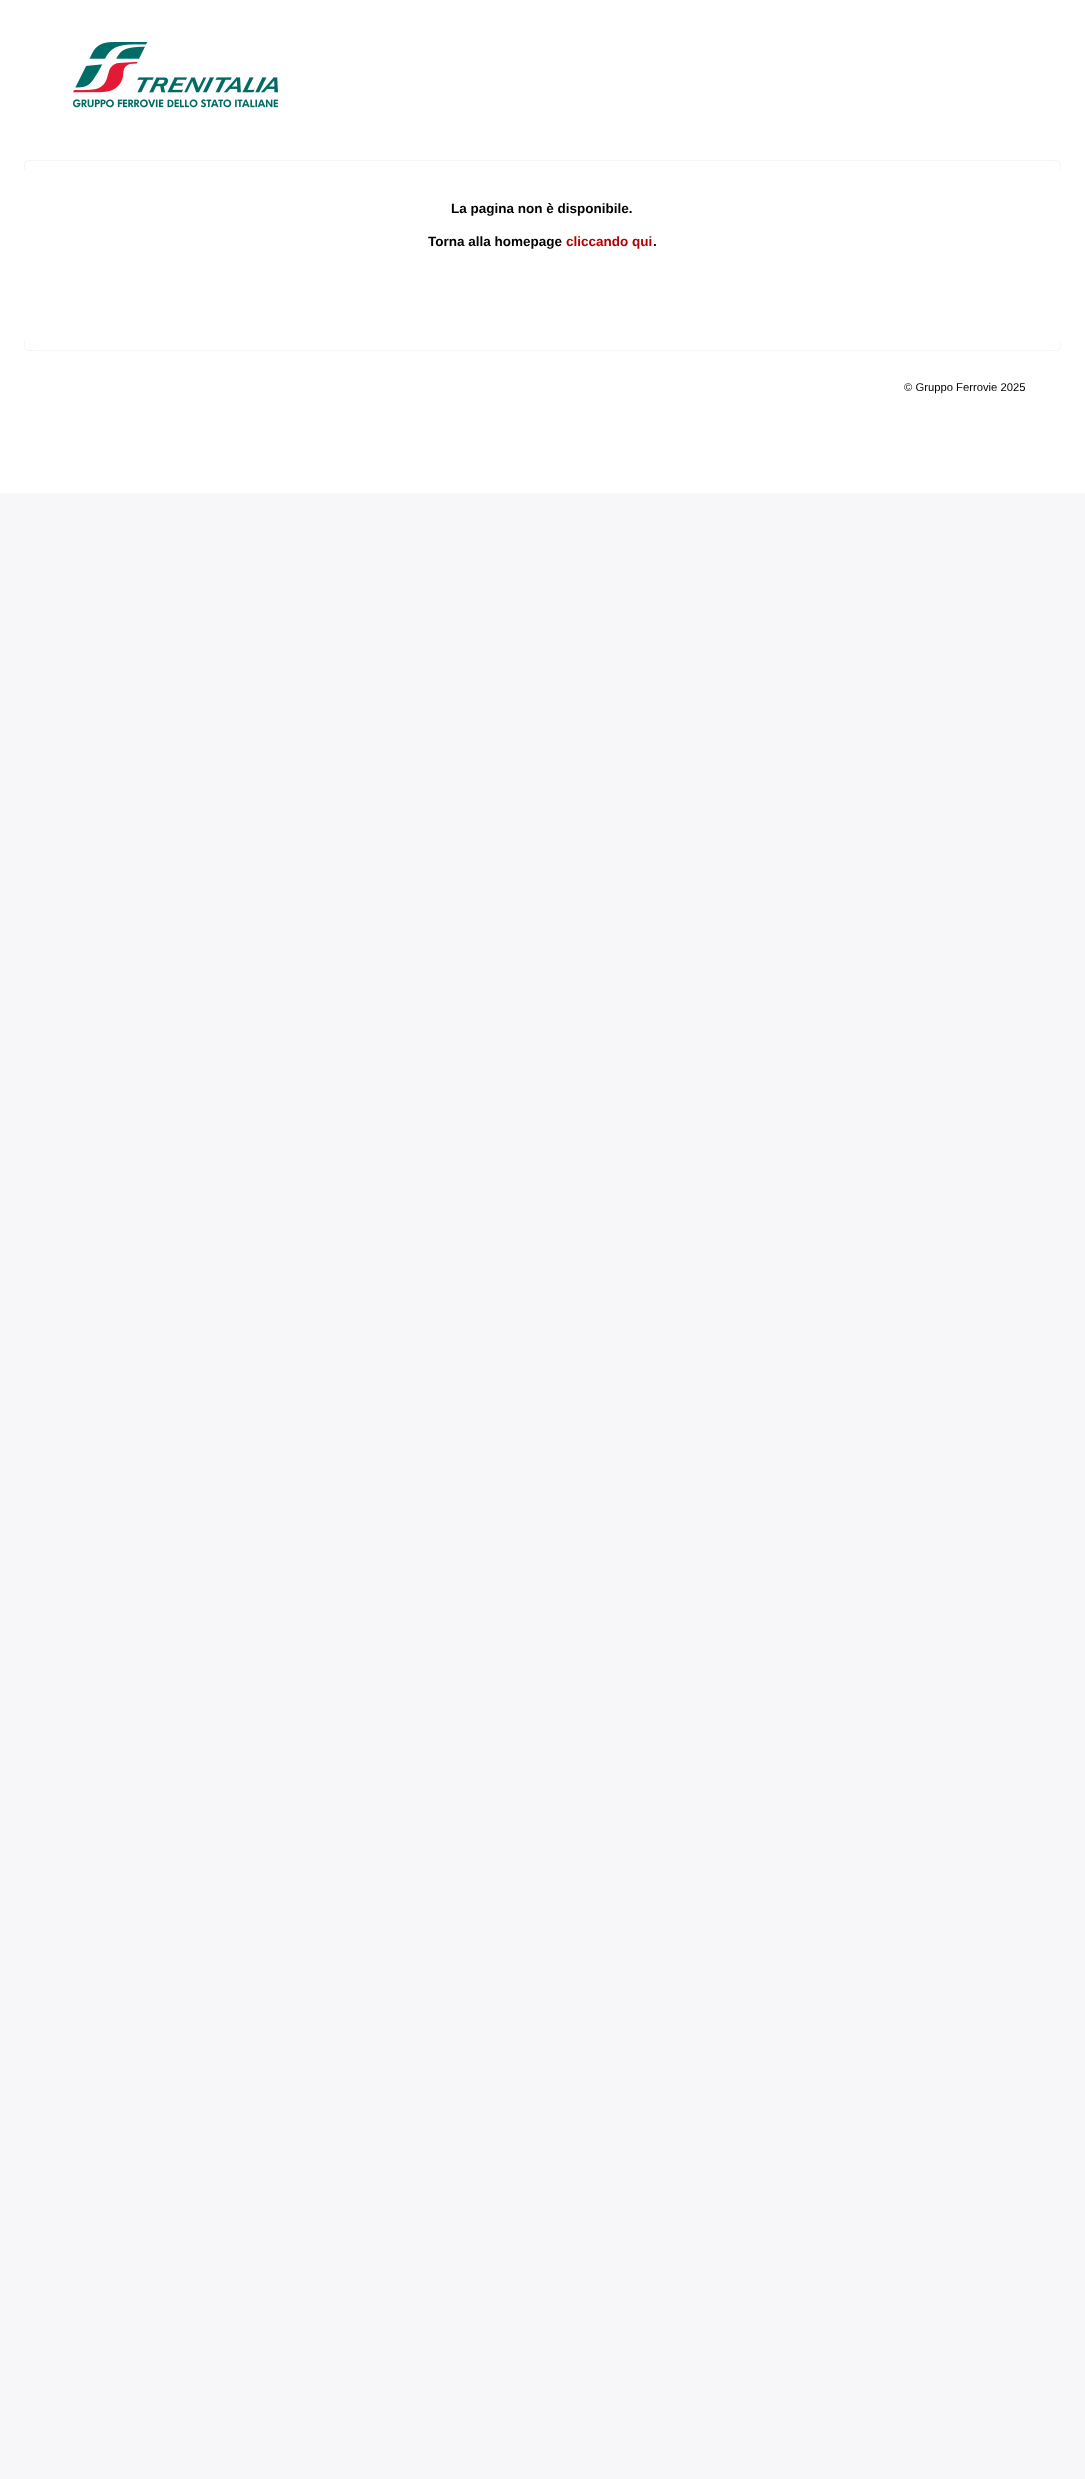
<svg xmlns="http://www.w3.org/2000/svg" xmlns:xlink="http://www.w3.org/1999/xlink" width="1085" height="2479" viewBox="0 0 1085 2479">
<style>
.cls-1{font:bold 13.5px Liberation Sans;fill:#000000}
.cls-2{font:bold 13.5px Liberation Sans;fill:#b30002}
.cls-3{font:11.25px Liberation Sans;fill:#000000}
</style>
<rect width="100%" height="100%" fill="#f7f7f9"/>
<rect fill="#ffffff" x="0" y="0" width="1085" height="493"/>
<image xlink:href="image0.png" x="73" y="42" width="205" height="66"/>
<rect fill="#f7f7f9" x="34" y="160" width="1017" height="191"/>
<rect fill="#ffffff" x="34" y="161" width="1017" height="8"/>
<rect fill="#ffffff" x="34" y="342" width="1017" height="8"/>
<image xlink:href="image1.png" x="24" y="160" width="10" height="10"/>
<image xlink:href="image2.png" x="1051" y="160" width="10" height="10"/>
<image xlink:href="image3.png" x="24" y="341" width="10" height="10"/>
<image xlink:href="image4.png" x="1051" y="341" width="10" height="10"/>
<rect fill="#ffffff" x="33" y="169" width="1019" height="173"/>
<text class="cls-1" x="451" y="213">La pagina non è disponibile.</text>
<text class="cls-1" x="428" y="246">Torna alla homepage</text>
<text class="cls-2" x="566" y="246">cliccando qui</text>
<text class="cls-1" x="653" y="246">.</text>
<text class="cls-3" x="904" y="391">© Gruppo Ferrovie 2025</text>
</svg>
